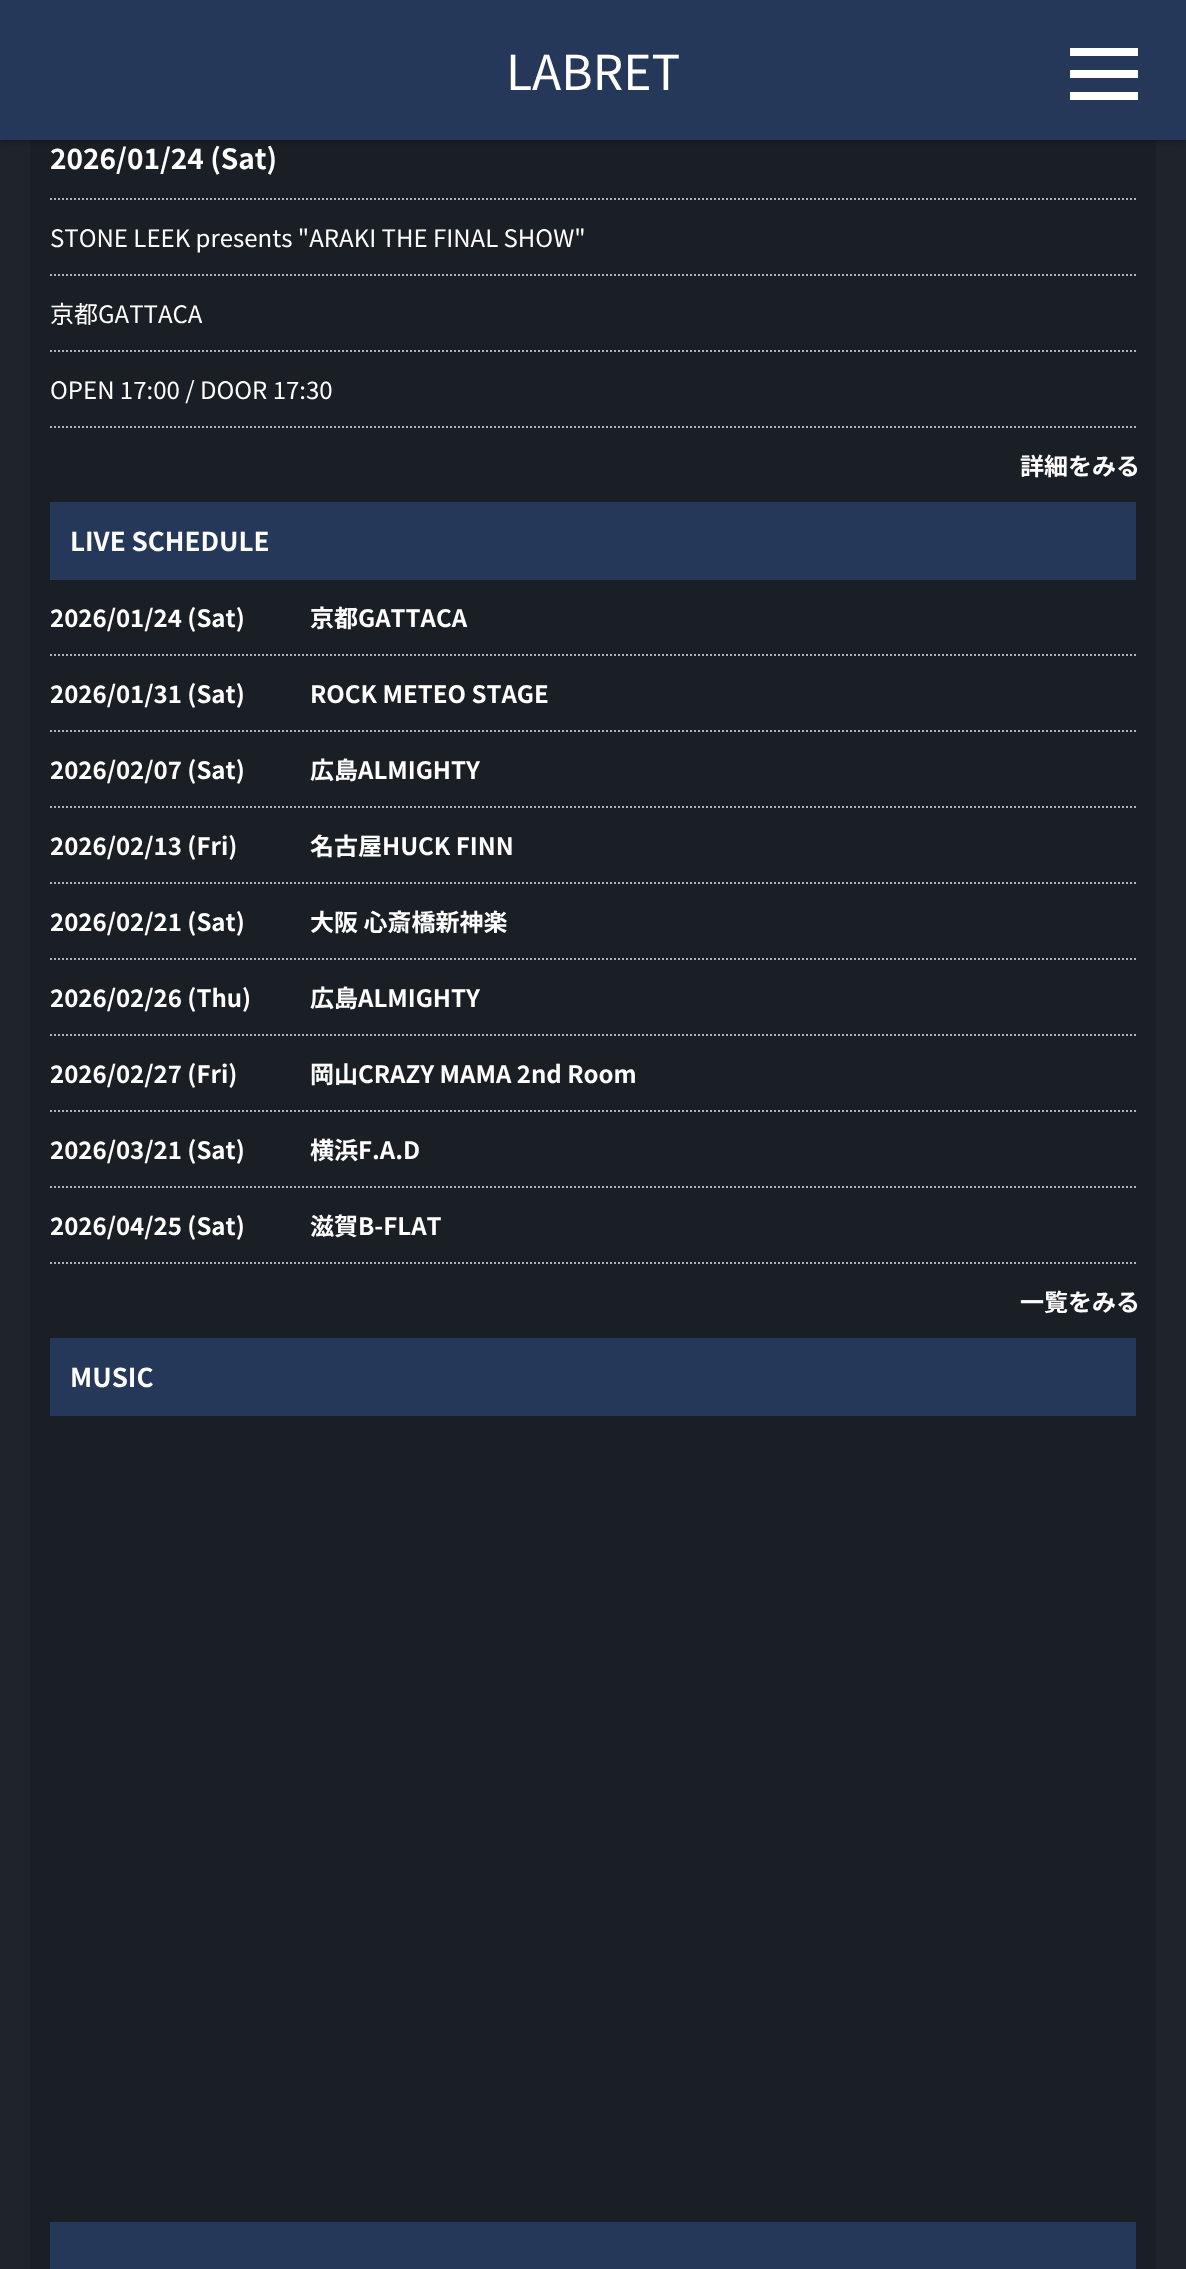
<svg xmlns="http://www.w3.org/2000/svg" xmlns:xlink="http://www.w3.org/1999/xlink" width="1186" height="2269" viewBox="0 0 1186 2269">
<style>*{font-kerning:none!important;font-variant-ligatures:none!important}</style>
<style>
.cls-1{font:48px Noto Sans JP;fill:#ffffff}
.cls-2{font:bold 28px Noto Sans JP;fill:#ffffff}
.cls-3{font:24px Noto Sans JP;fill:#ffffff}
.cls-4{font:bold 24px Noto Sans JP;fill:#ffffff}
.cls-5{font:bold 26px Noto Sans JP;fill:#ffffff}
</style>
<rect width="100%" height="100%" fill="#1f232c"/>
<rect fill="#1a1f25" x="30" y="140" width="1126" height="2129"/>
<rect fill="#000000" fill-opacity="0.24" filter="blur(2px)" x="0" y="2" width="1186" height="140"/>
<rect fill="#263859" x="0" y="0" width="1186" height="140"/>
<rect fill="#ffffff" x="1070" y="48" width="68" height="8"/>
<rect fill="#ffffff" x="1070" y="70" width="68" height="8"/>
<rect fill="#ffffff" x="1070" y="92" width="68" height="8"/>
<path fill="none" stroke="#b3b3b3" stroke-width="2" stroke-dasharray="2 2" d="M50 199H1136"/>
<path fill="none" stroke="#b3b3b3" stroke-width="2" stroke-dasharray="2 2" d="M50 275H1136"/>
<path fill="none" stroke="#b3b3b3" stroke-width="2" stroke-dasharray="2 2" d="M50 351H1136"/>
<path fill="none" stroke="#b3b3b3" stroke-width="2" stroke-dasharray="2 2" d="M50 427H1136"/>
<rect fill="#263859" x="50" y="502" width="1086" height="78"/>
<path fill="none" stroke="#b3b3b3" stroke-width="2" stroke-dasharray="2 2" d="M50 655H1136"/>
<path fill="none" stroke="#b3b3b3" stroke-width="2" stroke-dasharray="2 2" d="M50 731H1136"/>
<path fill="none" stroke="#b3b3b3" stroke-width="2" stroke-dasharray="2 2" d="M50 807H1136"/>
<path fill="none" stroke="#b3b3b3" stroke-width="2" stroke-dasharray="2 2" d="M50 883H1136"/>
<path fill="none" stroke="#b3b3b3" stroke-width="2" stroke-dasharray="2 2" d="M50 959H1136"/>
<path fill="none" stroke="#b3b3b3" stroke-width="2" stroke-dasharray="2 2" d="M50 1035H1136"/>
<path fill="none" stroke="#b3b3b3" stroke-width="2" stroke-dasharray="2 2" d="M50 1111H1136"/>
<path fill="none" stroke="#b3b3b3" stroke-width="2" stroke-dasharray="2 2" d="M50 1187H1136"/>
<path fill="none" stroke="#b3b3b3" stroke-width="2" stroke-dasharray="2 2" d="M50 1263H1136"/>
<rect fill="#263859" x="50" y="1338" width="1086" height="78"/>
<rect fill="#263859" x="50" y="2222" width="1086" height="47"/>
<text class="cls-1" x="506" y="90">LABRET</text>
<text class="cls-2" x="50" y="169">2026/01/24 (Sat)</text>
<text class="cls-3" x="50" y="247">STONE LEEK presents "ARAKI THE FINAL SHOW"</text>
<text class="cls-3" x="50" y="323">京都GATTACA</text>
<text class="cls-3" x="50" y="399">OPEN 17:00 / DOOR 17:30</text>
<text class="cls-4" x="1020" y="475">詳細をみる</text>
<text class="cls-5" x="70" y="551">LIVE SCHEDULE</text>
<text class="cls-4" x="50" y="627">2026/01/24 (Sat)</text>
<text class="cls-4" x="310" y="627">京都GATTACA</text>
<text class="cls-4" x="50" y="703">2026/01/31 (Sat)</text>
<text class="cls-4" x="310" y="703">ROCK METEO STAGE</text>
<text class="cls-4" x="50" y="779">2026/02/07 (Sat)</text>
<text class="cls-4" x="310" y="779">広島ALMIGHTY</text>
<text class="cls-4" x="50" y="855">2026/02/13 (Fri)</text>
<text class="cls-4" x="310" y="855">名古屋HUCK FINN</text>
<text class="cls-4" x="50" y="931">2026/02/21 (Sat)</text>
<text class="cls-4" x="310" y="931">大阪 心斎橋新神楽</text>
<text class="cls-4" x="50" y="1007">2026/02/26 (Thu)</text>
<text class="cls-4" x="310" y="1007">広島ALMIGHTY</text>
<text class="cls-4" x="50" y="1083">2026/02/27 (Fri)</text>
<text class="cls-4" x="310" y="1083">岡山CRAZY MAMA 2nd Room</text>
<text class="cls-4" x="50" y="1159">2026/03/21 (Sat)</text>
<text class="cls-4" x="310" y="1159">横浜F.A.D</text>
<text class="cls-4" x="50" y="1235">2026/04/25 (Sat)</text>
<text class="cls-4" x="310" y="1235">滋賀B-FLAT</text>
<text class="cls-4" x="1020" y="1311">一覧をみる</text>
<text class="cls-5" x="70" y="1387">MUSIC</text>
</svg>
